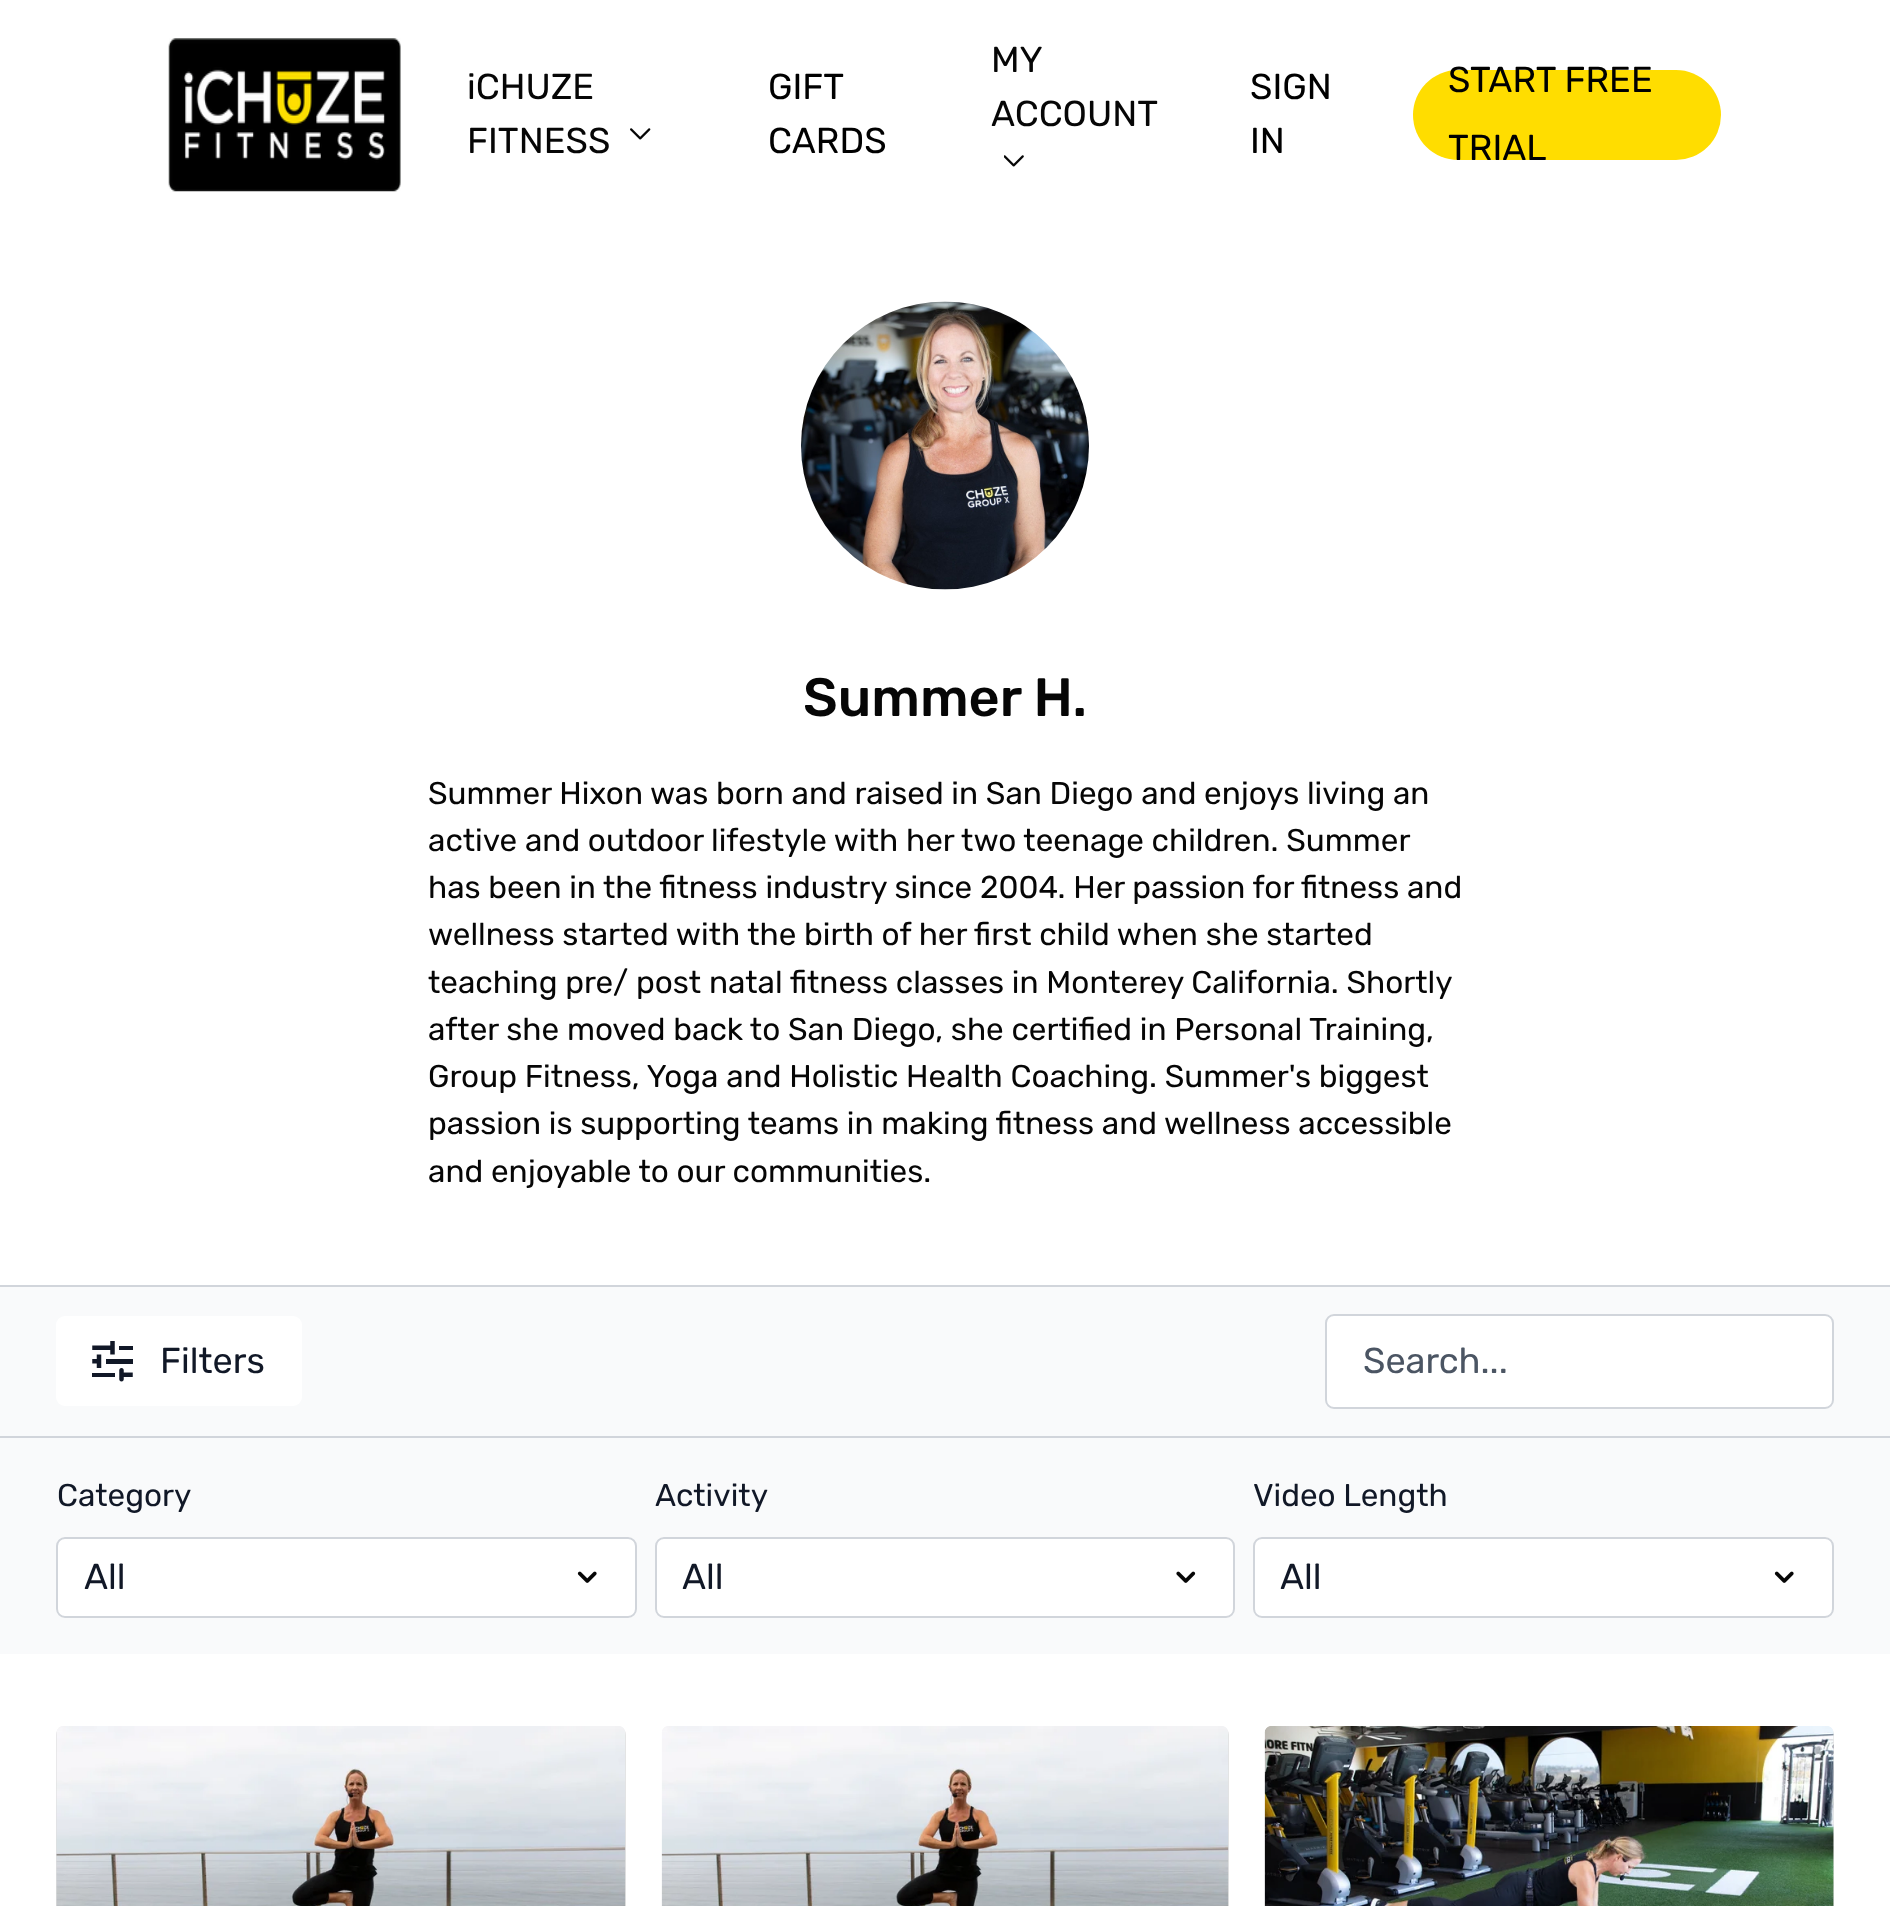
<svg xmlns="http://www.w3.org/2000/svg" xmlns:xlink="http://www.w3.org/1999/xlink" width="1890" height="1906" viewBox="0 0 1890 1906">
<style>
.cls-1{font:36px Rubik;fill:#060606}
.cls-2{font:36px Rubik;fill:#000000}
.cls-3{font:500 54px Rubik;fill:#060606}
.cls-4{font:31.5px Rubik;fill:#060606}
.cls-5{font:36px Rubik;fill:#111827}
.cls-6{font:36px Rubik;fill:#4b5563}
.cls-7{font:31.5px Rubik;fill:#111827}
</style>
<defs>
<linearGradient id="g1" gradientUnits="userSpaceOnUse" x1="56" y1="1886" x2="626" y2="1886"><stop offset="0.08" stop-color="#dedede"/><stop offset="0.18" stop-color="#e1e1e1"/><stop offset="0.33" stop-color="#e3e3e3"/></linearGradient>
<linearGradient id="g2" gradientUnits="userSpaceOnUse" x1="662" y1="1886" x2="1229" y2="1886"><stop offset="0.08" stop-color="#dedede"/><stop offset="0.18" stop-color="#e1e1e1"/><stop offset="0.33" stop-color="#e3e3e3"/></linearGradient>
<linearGradient id="g3" gradientUnits="userSpaceOnUse" x1="1265" y1="1886" x2="1834" y2="1886"><stop offset="0.08" stop-color="#dedede"/><stop offset="0.18" stop-color="#e1e1e1"/><stop offset="0.33" stop-color="#e3e3e3"/></linearGradient>
</defs>
<rect width="100%" height="100%" fill="#ffffff"/>
<image xlink:href="image0.png" x="168" y="38" width="233" height="154"/>
<image xlink:href="image1.png" x="630" y="128" width="21" height="12"/>
<image xlink:href="image2.png" x="1004" y="155" width="20" height="12"/>
<rect fill="#ffdd00" x="1413" y="70" width="308" height="90" rx="45"/>
<rect fill="#d1d5db" x="0" y="1285" width="1890" height="2"/>
<image xlink:href="image3.png" x="801" y="301" width="288" height="289"/>
<rect fill="#f9fafb" x="0" y="1287" width="1890" height="367"/>
<rect fill="#d1d5db" x="0" y="1436" width="1890" height="2"/>
<rect fill="#ffffff" x="56" y="1316" width="246" height="90" rx="9"/>
<image xlink:href="image4.png" x="92" y="1341" width="41" height="41"/>
<rect fill="#ffffff" stroke="#d1d5db" stroke-width="2" x="1326" y="1315" width="507" height="93" rx="8"/>
<rect fill="#ffffff" x="56" y="1537" width="581" height="81" rx="9"/>
<image xlink:href="image5.png" x="577" y="1571" width="20" height="12"/>
<rect fill="none" stroke="#d1d5db" stroke-width="2" x="57" y="1538" width="579" height="79" rx="8"/>
<rect fill="#ffffff" x="655" y="1537" width="580" height="81" rx="9"/>
<image xlink:href="image6.png" x="1176" y="1571" width="20" height="12"/>
<rect fill="none" stroke="#d1d5db" stroke-width="2" x="656" y="1538" width="578" height="79" rx="8"/>
<rect fill="#ffffff" x="1253" y="1537" width="581" height="81" rx="9"/>
<image xlink:href="image5.png" x="1774" y="1571" width="20" height="12"/>
<rect fill="none" stroke="#d1d5db" stroke-width="2" x="1254" y="1538" width="579" height="79" rx="8"/>
<rect fill="url(#g1)" x="56" y="1726" width="570" height="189" rx="9"/>
<image xlink:href="image7.png" x="56" y="1726" width="570" height="180"/>
<rect fill="url(#g2)" x="662" y="1726" width="567" height="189" rx="9"/>
<image xlink:href="image8.png" x="661" y="1726" width="568" height="180"/>
<rect fill="url(#g3)" x="1265" y="1726" width="569" height="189" rx="9"/>
<image xlink:href="image9.png" x="1264" y="1726" width="570" height="180"/>
<text class="cls-1"><tspan x="467" y="99">iCHUZE</tspan><tspan x="467" y="153">FITNESS</tspan></text>
<text class="cls-2"><tspan x="768" y="99">GIFT</tspan><tspan x="768" y="153">CARDS</tspan></text>
<text class="cls-1"><tspan x="991" y="72">MY</tspan><tspan x="991" y="126">ACCOUNT</tspan></text>
<text class="cls-2"><tspan x="1250" y="99">SIGN</tspan><tspan x="1250" y="153">IN</tspan></text>
<text class="cls-2"><tspan x="1448" y="92">START FREE</tspan><tspan x="1448" y="160">TRIAL</tspan></text>
<text class="cls-3" x="803" y="716">Summer H.</text>
<text class="cls-4"><tspan x="428" y="804">Summer Hixon was born and raised in San Diego and enjoys living an</tspan><tspan x="428" y="851">active and outdoor lifestyle with her two teenage children. Summer</tspan><tspan x="428" y="898">has been in the fitness industry since 2004. Her passion for fitness and</tspan><tspan x="428" y="945">wellness started with the birth of her first child when she started</tspan><tspan x="428" y="993">teaching pre/ post natal fitness classes in Monterey California. Shortly</tspan><tspan x="428" y="1040">after she moved back to San Diego, she certified in Personal Training,</tspan><tspan x="428" y="1087">Group Fitness, Yoga and Holistic Health Coaching. Summer's biggest</tspan><tspan x="428" y="1134">passion is supporting teams in making fitness and wellness accessible</tspan><tspan x="428" y="1182">and enjoyable to our communities.</tspan></text>
<text class="cls-5" x="160" y="1373">Filters</text>
<text class="cls-6" x="1363" y="1373">Search...</text>
<text class="cls-7" x="57" y="1506">Category</text>
<text class="cls-5" x="84" y="1589">All</text>
<text class="cls-7" x="655" y="1506">Activity</text>
<text class="cls-5" x="682" y="1589">All</text>
<text class="cls-7" x="1253" y="1506">Video Length</text>
<text class="cls-5" x="1280" y="1589">All</text>
</svg>
